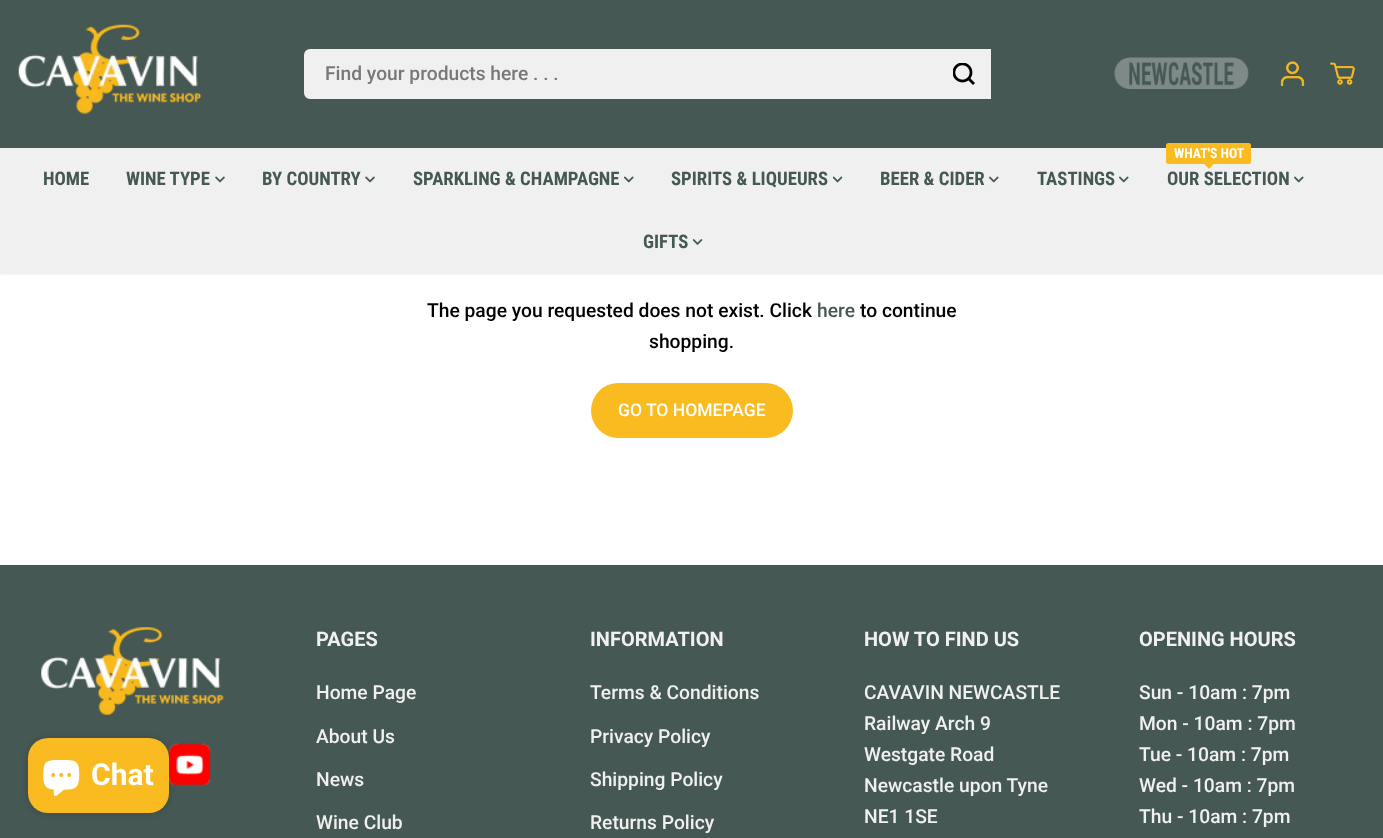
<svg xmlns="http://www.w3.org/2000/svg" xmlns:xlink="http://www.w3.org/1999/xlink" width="1383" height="838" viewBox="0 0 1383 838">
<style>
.cls-1{font:500 19.25px Roboto;fill:#787878}
.cls-2{font:bold 18.75px Roboto Condensed;fill:#465853}
.cls-3{font:bold 13.75px Roboto Condensed;fill:#ffffff}
.cls-4{font:500 19.25px Roboto;fill:#000000}
.cls-5{font:500 19.25px Roboto;fill:#465853}
.cls-6{font:500 17.5px Roboto;fill:#ffffff}
.cls-7{font:bold 20px Roboto;fill:#f0f0f0}
.cls-8{font:500 19.25px Roboto;fill:#f0f0f0}
.cls-9{font:bold 30px Roboto;fill:#ffffff}
</style>
<defs>
<clipPath id="clip1"><rect x="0" y="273" width="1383" height="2"/></clipPath>
</defs>
<rect width="100%" height="100%" fill="#ffffff"/>
<rect fill="#465853" x="0" y="0" width="1383" height="148"/>
<g clip-path="url(#clip1)">
<rect fill="#000000" fill-opacity="0.05" filter="blur(1px)" x="0" y="3" width="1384" height="272"/>
</g>
<image xlink:href="image0.png" x="18" y="24" width="184" height="91"/>
<rect fill="#f0f0f0" stroke="#f0f0f0" stroke-width="3" x="305.5" y="50.5" width="684" height="47" rx="4.5"/>
<rect fill="#f0f0f0" x="986" y="49" width="5" height="50"/>
<image xlink:href="image1.png" x="953" y="63" width="22" height="22"/>
<image xlink:href="image2.png" x="1114" y="57" width="135" height="32"/>
<image xlink:href="image3.png" x="1280" y="61" width="25" height="26"/>
<image xlink:href="image4.png" x="1330" y="62" width="25" height="23"/>
<rect fill="#f0f0f0" x="0" y="148" width="1383" height="125"/>
<image xlink:href="image5.png" x="215" y="176" width="10" height="7"/>
<image xlink:href="image5.png" x="365" y="176" width="10" height="7"/>
<image xlink:href="image6.png" x="624" y="176" width="10" height="7"/>
<image xlink:href="image7.png" x="833" y="176" width="10" height="7"/>
<image xlink:href="image6.png" x="989" y="176" width="10" height="7"/>
<image xlink:href="image6.png" x="1119" y="176" width="10" height="7"/>
<rect fill="#f9bb1f" x="1166" y="143" width="85" height="21" rx="2.5"/>
<path fill="#f9bb1f" d="M1201.5 161H1216.5L1209 169Z"/>
<image xlink:href="image6.png" x="1294" y="176" width="10" height="7"/>
<image xlink:href="image8.png" x="693" y="239" width="10" height="6"/>
<rect fill="#f9bb1f" x="591" y="383" width="202" height="55" rx="27.5"/>
<rect fill="#465853" x="0" y="565" width="1383" height="273"/>
<image xlink:href="image9.png" x="41" y="627" width="183" height="89"/>
<image xlink:href="image10.png" x="168" y="743" width="43" height="42"/>
<rect fill="#000000" fill-opacity="0.15" filter="blur(3px)" x="28" y="738" width="141" height="75" rx="20"/>
<rect fill="#f9bb1f" x="28" y="738" width="141" height="75" rx="20"/>
<image xlink:href="image11.png" x="43" y="760" width="37" height="36"/>
<text class="cls-1" x="325" y="80">Find your products here . . .</text>
<text class="cls-2" x="43" y="185">HOME</text>
<text class="cls-2" x="126" y="185">WINE TYPE</text>
<text class="cls-2" x="262" y="185">BY COUNTRY</text>
<text class="cls-2" x="413" y="185">SPARKLING &amp; CHAMPAGNE</text>
<text class="cls-2" x="671" y="185">SPIRITS &amp; LIQUEURS</text>
<text class="cls-2" x="880" y="185">BEER &amp; CIDER</text>
<text class="cls-2" x="1037" y="185">TASTINGS</text>
<text class="cls-3" x="1174" y="158">WHAT'S HOT</text>
<text class="cls-2" x="1167" y="185">OUR SELECTION</text>
<text class="cls-2" x="643" y="248">GIFTS</text>
<text class="cls-4" x="427" y="317">The page you requested does not exist. Click</text>
<text class="cls-5" x="817" y="317">here</text>
<text class="cls-4" x="860" y="317">to continue</text>
<text class="cls-4" x="649" y="348">shopping.</text>
<text class="cls-6" x="618" y="416">GO TO HOMEPAGE</text>
<text class="cls-7" x="316" y="646">PAGES</text>
<text class="cls-8" x="316" y="699">Home Page</text>
<text class="cls-8" x="316" y="743">About Us</text>
<text class="cls-8" x="316" y="786">News</text>
<text class="cls-8" x="316" y="829">Wine Club</text>
<text class="cls-7" x="590" y="646">INFORMATION</text>
<text class="cls-8" x="590" y="699">Terms &amp; Conditions</text>
<text class="cls-8" x="590" y="743">Privacy Policy</text>
<text class="cls-8" x="590" y="786">Shipping Policy</text>
<text class="cls-8" x="590" y="829">Returns Policy</text>
<text class="cls-7" x="864" y="646">HOW TO FIND US</text>
<text class="cls-8"><tspan x="864" y="699">CAVAVIN NEWCASTLE</tspan><tspan x="864" y="730">Railway Arch 9</tspan><tspan x="864" y="761">Westgate Road</tspan><tspan x="864" y="792">Newcastle upon Tyne</tspan><tspan x="864" y="823">NE1 1SE</tspan></text>
<text class="cls-7" x="1139" y="646">OPENING HOURS</text>
<text class="cls-8"><tspan x="1139" y="699">Sun - 10am : 7pm</tspan><tspan x="1139" y="730">Mon - 10am : 7pm</tspan><tspan x="1139" y="761">Tue - 10am : 7pm</tspan><tspan x="1139" y="792">Wed - 10am : 7pm</tspan><tspan x="1139" y="823">Thu - 10am : 7pm</tspan></text>
<text class="cls-9" x="91" y="785">Chat</text>
</svg>
